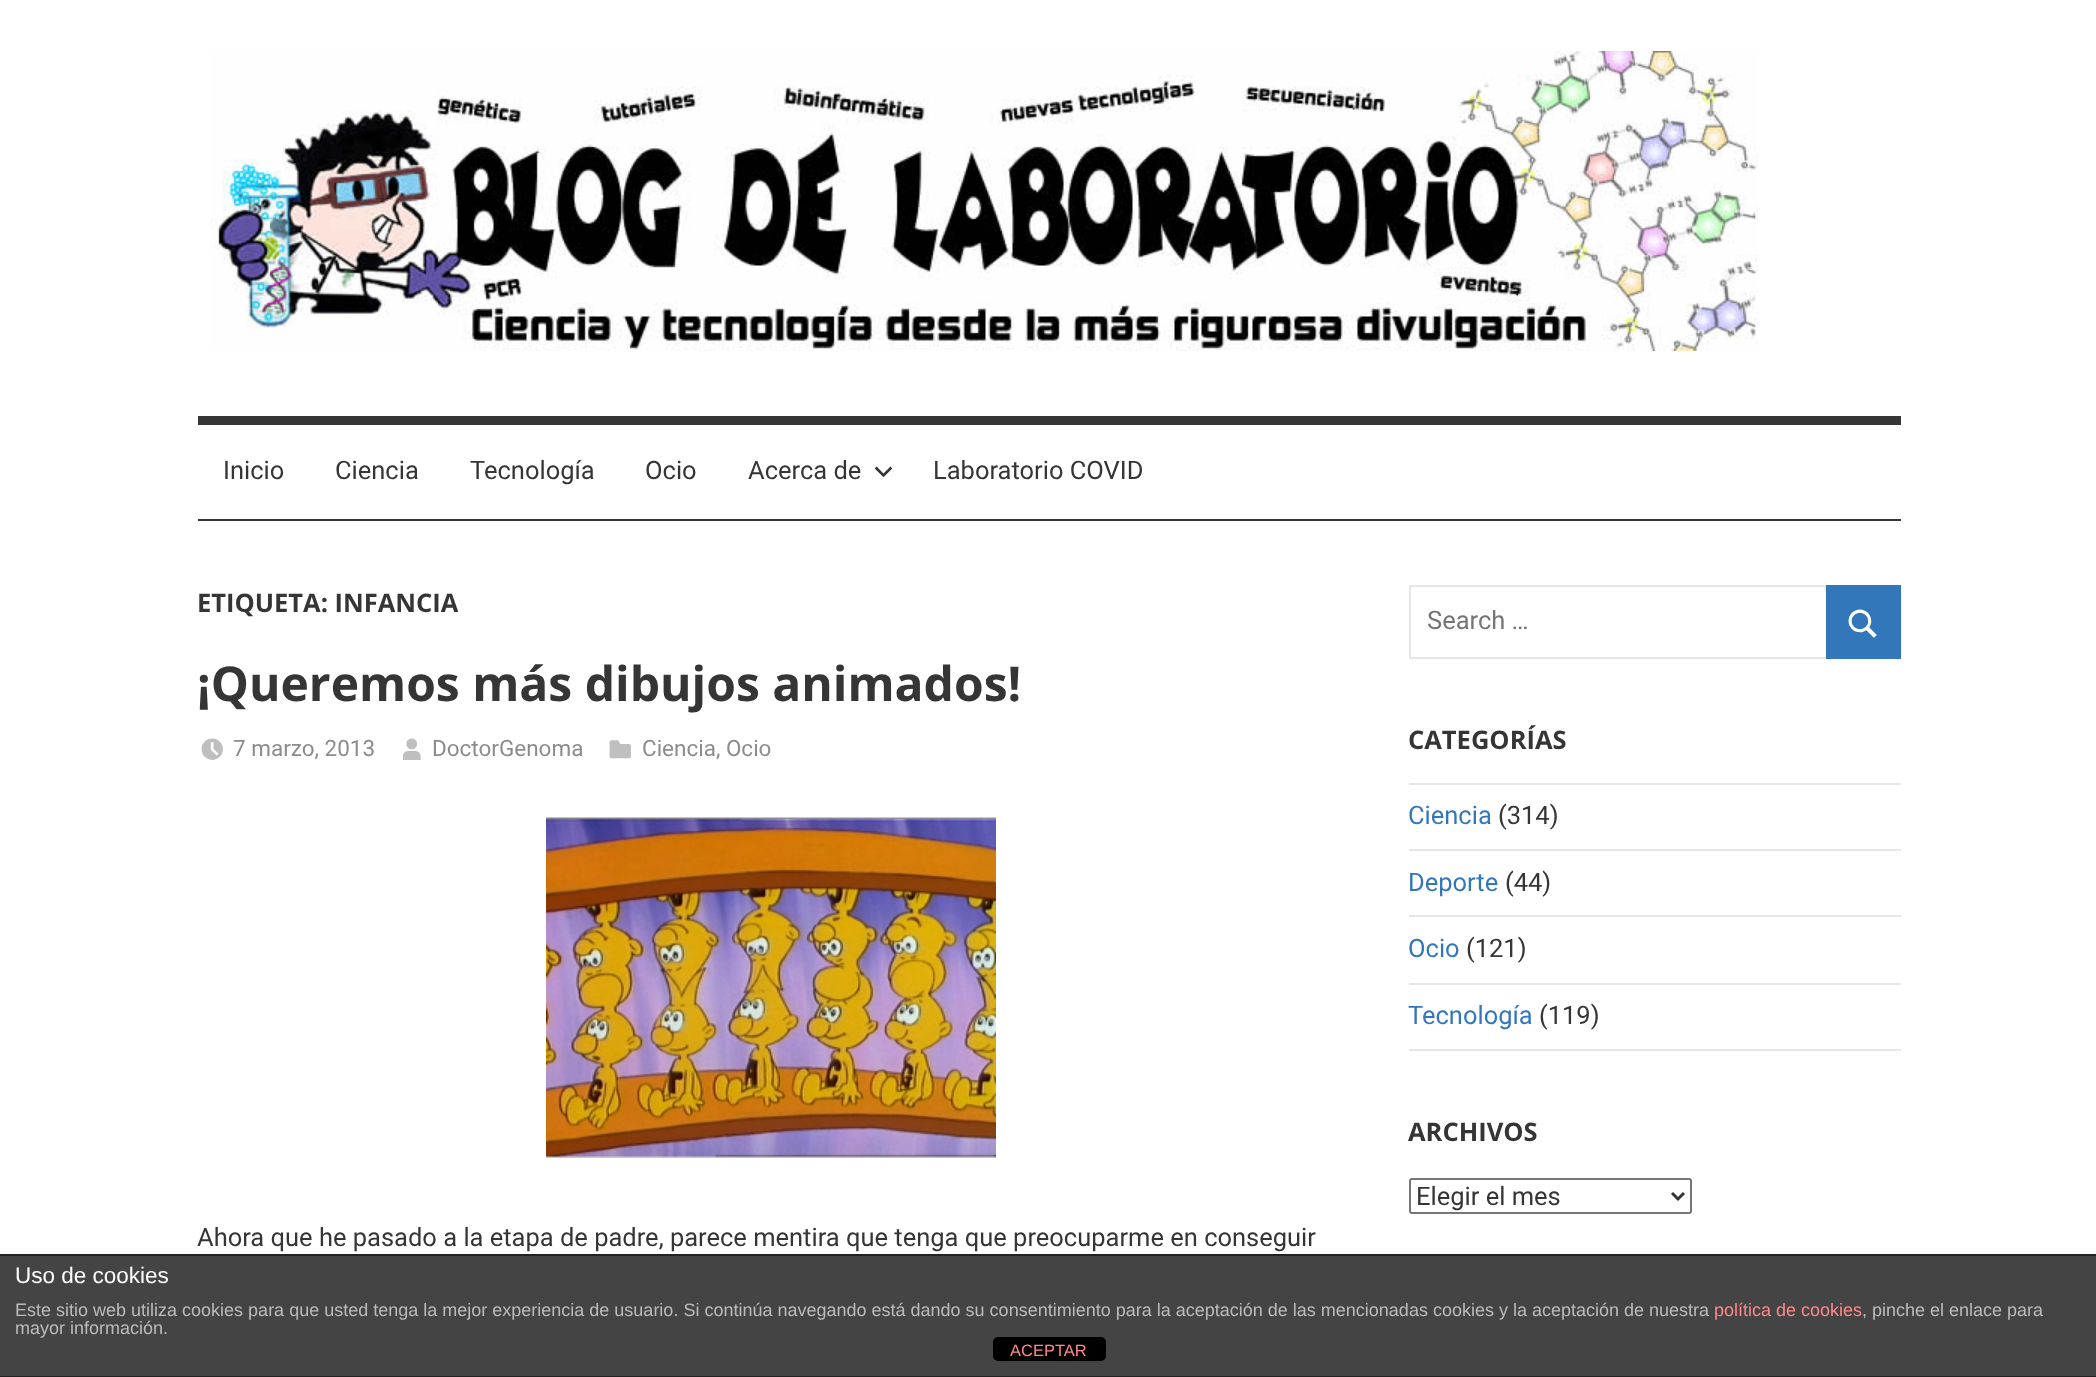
<svg xmlns="http://www.w3.org/2000/svg" xmlns:xlink="http://www.w3.org/1999/xlink" width="2096" height="1377" viewBox="0 0 2096 1377">
<style>
.cls-1{font:25.5px Roboto;fill:#353535}
.cls-2{font:bold 25.5px Open Sans;fill:#353535}
.cls-3{font:bold 48px Open Sans;fill:#353535}
.cls-4{font:22.5px Roboto;fill:#8c8c8c}
.cls-5{font:25.5px Roboto;fill:#757575}
.cls-6{font:25.5px Roboto;fill:#3377bb}
.cls-7{font:22.5px Liberation Sans;fill:#ffffff}
.cls-8{font:18px Liberation Sans;fill:#bbbbbb}
.cls-9{font:18px Liberation Sans;fill:#ff8888}
.cls-10{font:16.5px Liberation Sans;fill:#ff8888}
</style>
<rect width="100%" height="100%" fill="#ffffff"/>
<image xlink:href="image0.png" x="210" y="51" width="1548" height="300"/>
<rect fill="#353535" x="198" y="416" width="1703" height="9"/>
<rect fill="#353535" x="198" y="519" width="1703" height="2"/>
<image xlink:href="image1.png" x="874" y="466" width="19" height="12"/>
<image xlink:href="image2.png" x="201" y="738" width="22" height="22"/>
<image xlink:href="image3.png" x="402" y="738" width="19" height="22"/>
<image xlink:href="image4.png" x="609" y="740" width="22" height="19"/>
<image xlink:href="image5.png" x="546" y="817" width="450" height="341"/>
<rect fill="none" stroke="#e6e6e6" stroke-width="2" x="1410" y="586" width="490" height="72"/>
<rect fill="#3377bb" x="1826" y="585" width="75" height="74"/>
<image xlink:href="image6.png" x="1848" y="609" width="29" height="29"/>
<rect fill="#e6e6e6" x="1409" y="783" width="492" height="2"/>
<rect fill="#e6e6e6" x="1409" y="849" width="492" height="2"/>
<rect fill="#e6e6e6" x="1409" y="915" width="492" height="2"/>
<rect fill="#e6e6e6" x="1409" y="983" width="492" height="2"/>
<rect fill="#e6e6e6" x="1409" y="1049" width="492" height="2"/>
<rect fill="none" stroke="#767676" stroke-width="2" x="1410" y="1179" width="281" height="34" rx="2"/>
<path fill="none" stroke="#353535" stroke-width="3" d="M1672 1193L1678 1199L1684 1193"/>
<rect fill="#444444" x="0" y="1256" width="2096" height="120"/>
<rect fill="#222222" x="0" y="1254" width="2096" height="2"/>
<rect fill="#222222" x="0" y="1376" width="2096" height="1"/>
<rect fill="#000000" x="993" y="1337" width="113" height="24" rx="5"/>
<text class="cls-1" x="223" y="479">Inicio</text>
<text class="cls-1" x="335" y="479">Ciencia</text>
<text class="cls-1" x="470" y="479">Tecnología</text>
<text class="cls-1" x="645" y="479">Ocio</text>
<text class="cls-1" x="748" y="479">Acerca de</text>
<text class="cls-1" x="933" y="479">Laboratorio COVID</text>
<text class="cls-2" x="197" y="612">ETIQUETA: INFANCIA</text>
<text class="cls-3" x="197" y="701">¡Queremos más dibujos animados!</text>
<text class="cls-4" x="233" y="756">7 marzo, 2013</text>
<text class="cls-4" x="432" y="756">DoctorGenoma</text>
<text class="cls-4" x="642" y="756">Ciencia, Ocio</text>
<text class="cls-1" x="197" y="1246">Ahora que he pasado a la etapa de padre, parece mentira que tenga que preocuparme en conseguir</text>
<text class="cls-5" x="1427" y="629">Search …</text>
<text class="cls-2" x="1408" y="749">CATEGORÍAS</text>
<text class="cls-6" x="1408" y="824">Ciencia</text>
<text class="cls-1" x="1498" y="824">(314)</text>
<text class="cls-6" x="1408" y="891">Deporte</text>
<text class="cls-1" x="1505" y="891">(44)</text>
<text class="cls-6" x="1408" y="957">Ocio</text>
<text class="cls-1" x="1466" y="957">(121)</text>
<text class="cls-6" x="1408" y="1024">Tecnología</text>
<text class="cls-1" x="1539" y="1024">(119)</text>
<text class="cls-2" x="1408" y="1141">ARCHIVOS</text>
<text class="cls-1" x="1416" y="1205">Elegir el mes</text>
<text class="cls-7" x="15" y="1283">Uso de cookies</text>
<text class="cls-8" x="15" y="1316">Este sitio web utiliza cookies para que usted tenga la mejor experiencia de usuario. Si continúa navegando está dando su consentimiento para la aceptación de las mencionadas cookies y la aceptación de nuestra</text>
<text class="cls-9" x="1714" y="1316">política de cookies</text>
<text class="cls-8" x="1862" y="1316">, pinche el enlace para</text>
<text class="cls-8" x="15" y="1334">mayor información.</text>
<text class="cls-10" x="1010" y="1356">ACEPTAR</text>
</svg>
